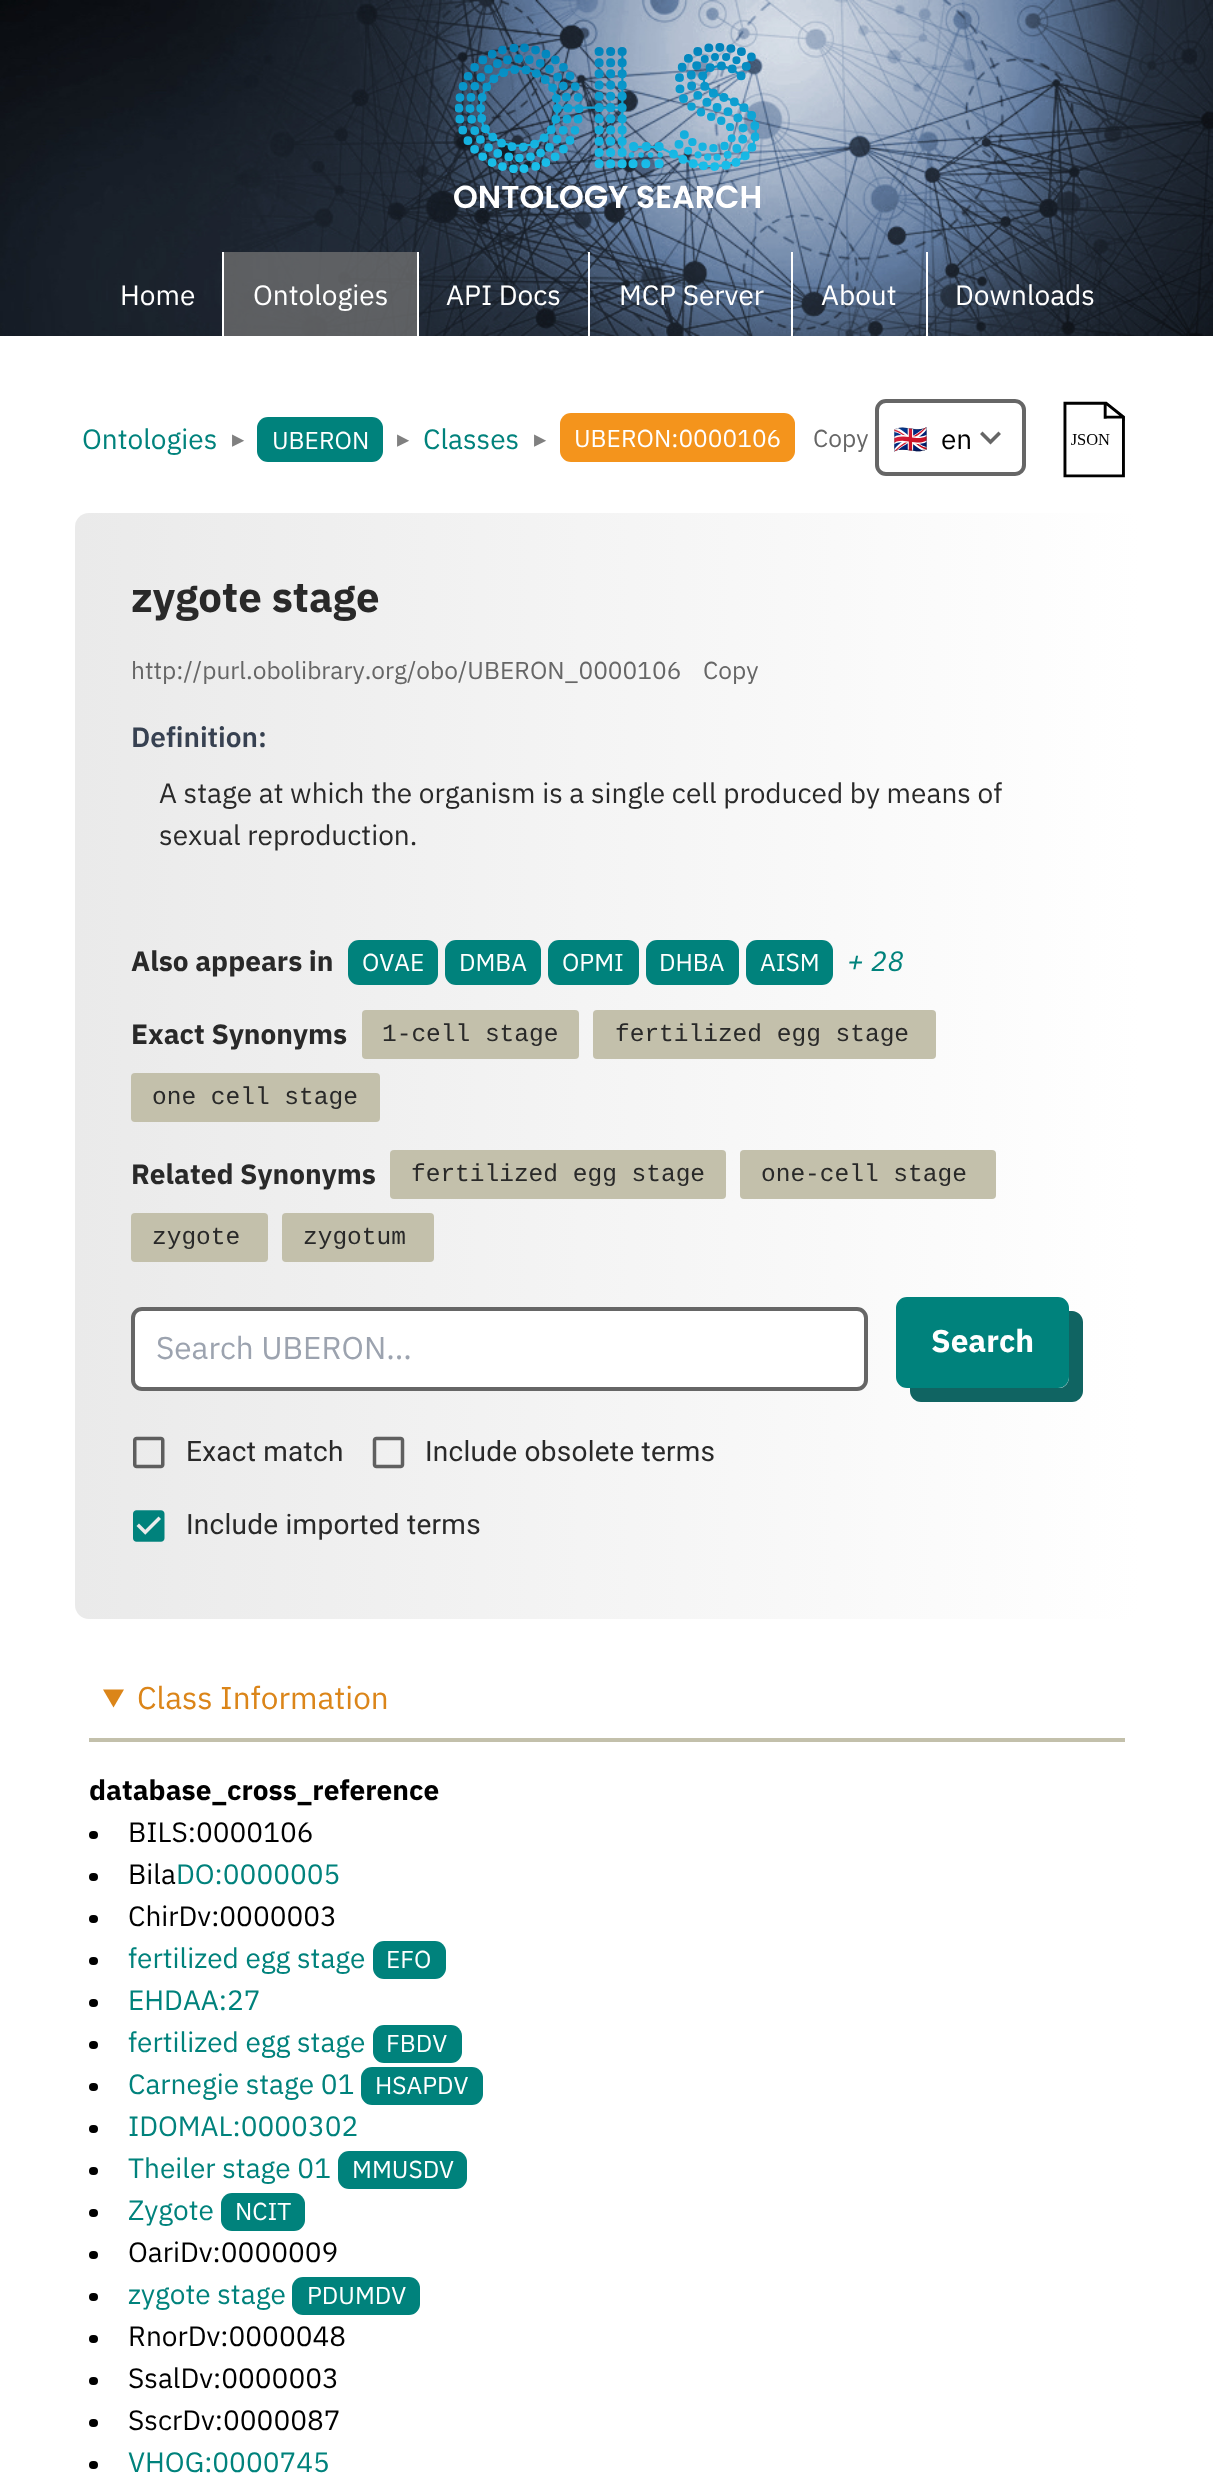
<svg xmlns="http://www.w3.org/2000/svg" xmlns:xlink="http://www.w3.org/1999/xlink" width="1213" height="2491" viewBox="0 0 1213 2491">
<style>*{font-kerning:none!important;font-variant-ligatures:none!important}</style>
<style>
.cls-1{font:28px IBM Plex Sans;fill:#ffffff}
.cls-2{font:28px IBM Plex Sans;fill:#00827c}
.cls-3{font:24.5px DejaVu Sans;fill:#808080}
.cls-4{font:24.5px IBM Plex Sans;fill:#ffffff}
.cls-5{font:24.5px IBM Plex Sans;fill:#666666}
.cls-6{font:28px Noto Color Emoji;fill:#000000}
.cls-7{font:28px IBM Plex Sans;fill:#000000}
.cls-8{font:bold 42px IBM Plex Sans;fill:#292929}
.cls-9{font:600 28px IBM Plex Sans;fill:#374151}
.cls-10{font:28px IBM Plex Sans;fill:#292929}
.cls-11{font:bold 28px IBM Plex Sans;fill:#292929}
.cls-12{font:italic 28px IBM Plex Sans;fill:#00827c}
.cls-13{font:24.5px Liberation Mono;fill:#292929}
.cls-14{font:31.5px IBM Plex Sans;fill:#9ca3af}
.cls-15{font:bold 31.5px IBM Plex Sans;fill:#ffffff}
.cls-16{font:28px Roboto;letter-spacing:0.25px;fill:#292929}
.cls-17{font:31.5px IBM Plex Sans;fill:#db8519}
.cls-18{font:bold 28px IBM Plex Sans;fill:#000000}
</style>
<defs>
<linearGradient id="g1" gradientUnits="userSpaceOnUse" x1="75" y1="1066" x2="1139" y2="1066"><stop offset="0" stop-color="#eaeaea"/><stop offset="1" stop-color="#ffffff"/></linearGradient>
<clipPath id="clip1"><rect x="893" y="417" width="80" height="42"/></clipPath>
</defs>
<rect width="100%" height="100%" fill="#ffffff"/>
<image xlink:href="image0.png" x="0" y="0" width="1213" height="336"/>
<image xlink:href="image1.png" x="454" y="43" width="306" height="166"/>
<rect fill="#ffffff" x="222" y="252" width="2" height="84"/>
<rect fill="#737373" fill-opacity="0.75" x="224" y="252" width="193" height="84"/>
<rect fill="#ffffff" x="417" y="252" width="2" height="84"/>
<rect fill="#ffffff" x="588" y="252" width="2" height="84"/>
<rect fill="#ffffff" x="791" y="252" width="2" height="84"/>
<rect fill="#ffffff" x="926" y="252" width="2" height="84"/>
<rect fill="#00827c" x="257" y="417" width="126" height="45" rx="11"/>
<rect fill="#f4941c" x="560" y="413" width="235" height="49" rx="11"/>
<path fill="#666666" d="M982.5 431.5L990.5 439.5L998.5 431.5L1001 434L990.5 444.5L980 434Z"/>
<rect fill="none" stroke="#666666" stroke-width="4" x="877" y="401" width="147" height="73" rx="9"/>
<image xlink:href="image2.png" x="1063" y="401" width="62" height="77"/>
<rect fill="url(#g1)" x="75" y="513" width="1064" height="1106" rx="14"/>
<rect fill="#00827c" x="348" y="940" width="90" height="45" rx="11"/>
<rect fill="#00827c" x="445" y="940" width="96" height="45" rx="11"/>
<rect fill="#00827c" x="548" y="940" width="91" height="45" rx="11"/>
<rect fill="#00827c" x="646" y="940" width="93" height="45" rx="11"/>
<rect fill="#00827c" x="746" y="940" width="87" height="45" rx="11"/>
<rect fill="#c3c0ab" x="362" y="1010" width="217" height="49" rx="4"/>
<rect fill="#c3c0ab" x="593" y="1010" width="343" height="49" rx="4"/>
<rect fill="#c3c0ab" x="131" y="1073" width="249" height="49" rx="4"/>
<rect fill="#c3c0ab" x="390" y="1150" width="336" height="49" rx="4"/>
<rect fill="#c3c0ab" x="740" y="1150" width="256" height="49" rx="4"/>
<rect fill="#c3c0ab" x="131" y="1213" width="137" height="49" rx="4"/>
<rect fill="#c3c0ab" x="282" y="1213" width="152" height="49" rx="4"/>
<rect fill="#ffffff" stroke="#666666" stroke-width="4" x="133" y="1309" width="733" height="80" rx="9"/>
<path fill="#106462" d="M910 1388V1391C910 1397 915 1402 921 1402H1072C1078 1402 1083 1397 1083 1391V1322C1083 1316 1078 1311 1072 1311H1069V1377C1069 1383 1065 1388 1059 1388Z"/>
<rect fill="#00827c" stroke="#00827c" stroke-width="7" x="899.5" y="1300.5" width="166" height="84" rx="7.5"/>
<image xlink:href="image3.png" x="133" y="1436" width="32" height="33"/>
<image xlink:href="image4.png" x="372" y="1436" width="33" height="33"/>
<image xlink:href="image5.png" x="133" y="1510" width="32" height="32"/>
<rect fill="#c3c0ab" x="89" y="1738" width="1036" height="4"/>
<path fill="#db8519" d="M103 1689.5H124L113.5 1707.5Z"/>
<rect fill="#000000" x="89" y="1831" width="9" height="8" rx="4"/>
<rect fill="#000000" x="89" y="1873" width="9" height="8" rx="4"/>
<rect fill="#000000" x="89" y="1915" width="9" height="8" rx="4"/>
<rect fill="#000000" x="89" y="1957" width="9" height="8" rx="4"/>
<rect fill="#00827c" x="373" y="1941" width="73" height="38" rx="11"/>
<rect fill="#000000" x="89" y="1999" width="9" height="8" rx="4"/>
<rect fill="#000000" x="89" y="2041" width="9" height="8" rx="4"/>
<rect fill="#00827c" x="373" y="2025" width="89" height="38" rx="11"/>
<rect fill="#000000" x="89" y="2083" width="9" height="8" rx="4"/>
<rect fill="#00827c" x="361" y="2067" width="122" height="38" rx="11"/>
<rect fill="#000000" x="89" y="2125" width="9" height="8" rx="4"/>
<rect fill="#000000" x="89" y="2167" width="9" height="8" rx="4"/>
<rect fill="#00827c" x="338" y="2151" width="129" height="38" rx="11"/>
<rect fill="#000000" x="89" y="2209" width="9" height="8" rx="4"/>
<rect fill="#00827c" x="221" y="2193" width="84" height="38" rx="11"/>
<rect fill="#000000" x="89" y="2251" width="9" height="8" rx="4"/>
<rect fill="#000000" x="89" y="2293" width="9" height="8" rx="4"/>
<rect fill="#00827c" x="292" y="2277" width="128" height="38" rx="11"/>
<rect fill="#000000" x="89" y="2335" width="9" height="8" rx="4"/>
<rect fill="#000000" x="89" y="2377" width="9" height="8" rx="4"/>
<rect fill="#000000" x="89" y="2419" width="9" height="8" rx="4"/>
<rect fill="#000000" x="89" y="2461" width="9" height="8" rx="4"/>
<text class="cls-1" x="120" y="305">Home</text>
<text class="cls-1" x="253" y="305">Ontologies</text>
<text class="cls-1" x="446" y="305">API Docs</text>
<text class="cls-1" x="619" y="305">MCP Server</text>
<text class="cls-1" x="821" y="305">About</text>
<text class="cls-1" x="955" y="305">Downloads</text>
<text class="cls-2" x="82" y="449">Ontologies</text>
<text class="cls-3" x="232" y="447">▸</text>
<text class="cls-4" x="272" y="449">UBERON</text>
<text class="cls-3" x="397" y="447">▸</text>
<text class="cls-2" x="423" y="449">Classes</text>
<text class="cls-3" x="534" y="447">▸</text>
<text class="cls-4" x="574" y="447">UBERON:0000106</text>
<text class="cls-5" x="813" y="447">Copy</text>
<g clip-path="url(#clip1)">
<text class="cls-6" x="893" y="449">🇬🇧</text>
</g>
<text class="cls-7" x="941" y="449">en</text>
<text class="cls-8" x="131" y="612">zygote stage</text>
<text class="cls-5" x="131" y="679">http://purl.obolibrary.org/obo/UBERON_0000106</text>
<text class="cls-5" x="703" y="679">Copy</text>
<text class="cls-9" x="131" y="747">Definition:</text>
<text class="cls-10"><tspan x="159" y="803">A stage at which the organism is a single cell produced by means of</tspan><tspan x="159" y="845">sexual reproduction.</tspan></text>
<text class="cls-11" x="131" y="971">Also appears in</text>
<text class="cls-4" x="362" y="971">OVAE</text>
<text class="cls-4" x="459" y="971">DMBA</text>
<text class="cls-4" x="562" y="971">OPMI</text>
<text class="cls-4" x="659" y="971">DHBA</text>
<text class="cls-4" x="760" y="971">AISM</text>
<text class="cls-12" x="847" y="971">+ 28</text>
<text class="cls-11" x="131" y="1044">Exact Synonyms</text>
<text class="cls-13" x="382" y="1041">1-cell stage</text>
<text class="cls-13" x="615" y="1041">fertilized egg stage</text>
<text class="cls-13" x="152" y="1104">one cell stage</text>
<text class="cls-11" x="131" y="1184">Related Synonyms</text>
<text class="cls-13" x="411" y="1181">fertilized egg stage</text>
<text class="cls-13" x="761" y="1181">one-cell stage</text>
<text class="cls-13" x="152" y="1244">zygote</text>
<text class="cls-13" x="303" y="1244">zygotum</text>
<text class="cls-14" x="156" y="1359">Search UBERON...</text>
<text class="cls-15" x="931" y="1352">Search</text>
<text class="cls-16" x="186" y="1461">Exact match</text>
<text class="cls-16" x="425" y="1461">Include obsolete terms</text>
<text class="cls-16" x="186" y="1534">Include imported terms</text>
<text class="cls-17" x="137" y="1709">Class Information</text>
<text class="cls-18" x="89" y="1800">database_cross_reference</text>
<text class="cls-7"><tspan x="128" y="1842">BILS:0000106</tspan><tspan x="128" y="1884">Bila</tspan></text>
<text class="cls-2" x="176" y="1884">DO:0000005</text>
<text class="cls-7" x="128" y="1926">ChirDv:0000003</text>
<text class="cls-2" x="128" y="1968">fertilized egg stage</text>
<text class="cls-4" x="386" y="1968">EFO</text>
<text class="cls-2"><tspan x="128" y="2010">EHDAA:27</tspan><tspan x="128" y="2052">fertilized egg stage</tspan></text>
<text class="cls-4" x="386" y="2052">FBDV</text>
<text class="cls-2" x="128" y="2094">Carnegie stage 01</text>
<text class="cls-4" x="375" y="2094">HSAPDV</text>
<text class="cls-2"><tspan x="128" y="2136">IDOMAL:0000302</tspan><tspan x="128" y="2178">Theiler stage 01</tspan></text>
<text class="cls-4" x="352" y="2178">MMUSDV</text>
<text class="cls-2" x="128" y="2220">Zygote</text>
<text class="cls-4" x="235" y="2220">NCIT</text>
<text class="cls-7" x="128" y="2262">OariDv:0000009</text>
<text class="cls-2" x="128" y="2304">zygote stage</text>
<text class="cls-4" x="307" y="2304">PDUMDV</text>
<text class="cls-7"><tspan x="128" y="2346">RnorDv:0000048</tspan><tspan x="128" y="2388">SsalDv:0000003</tspan><tspan x="128" y="2430">SscrDv:0000087</tspan></text>
<text class="cls-2" x="128" y="2472">VHOG:0000745</text>
</svg>
